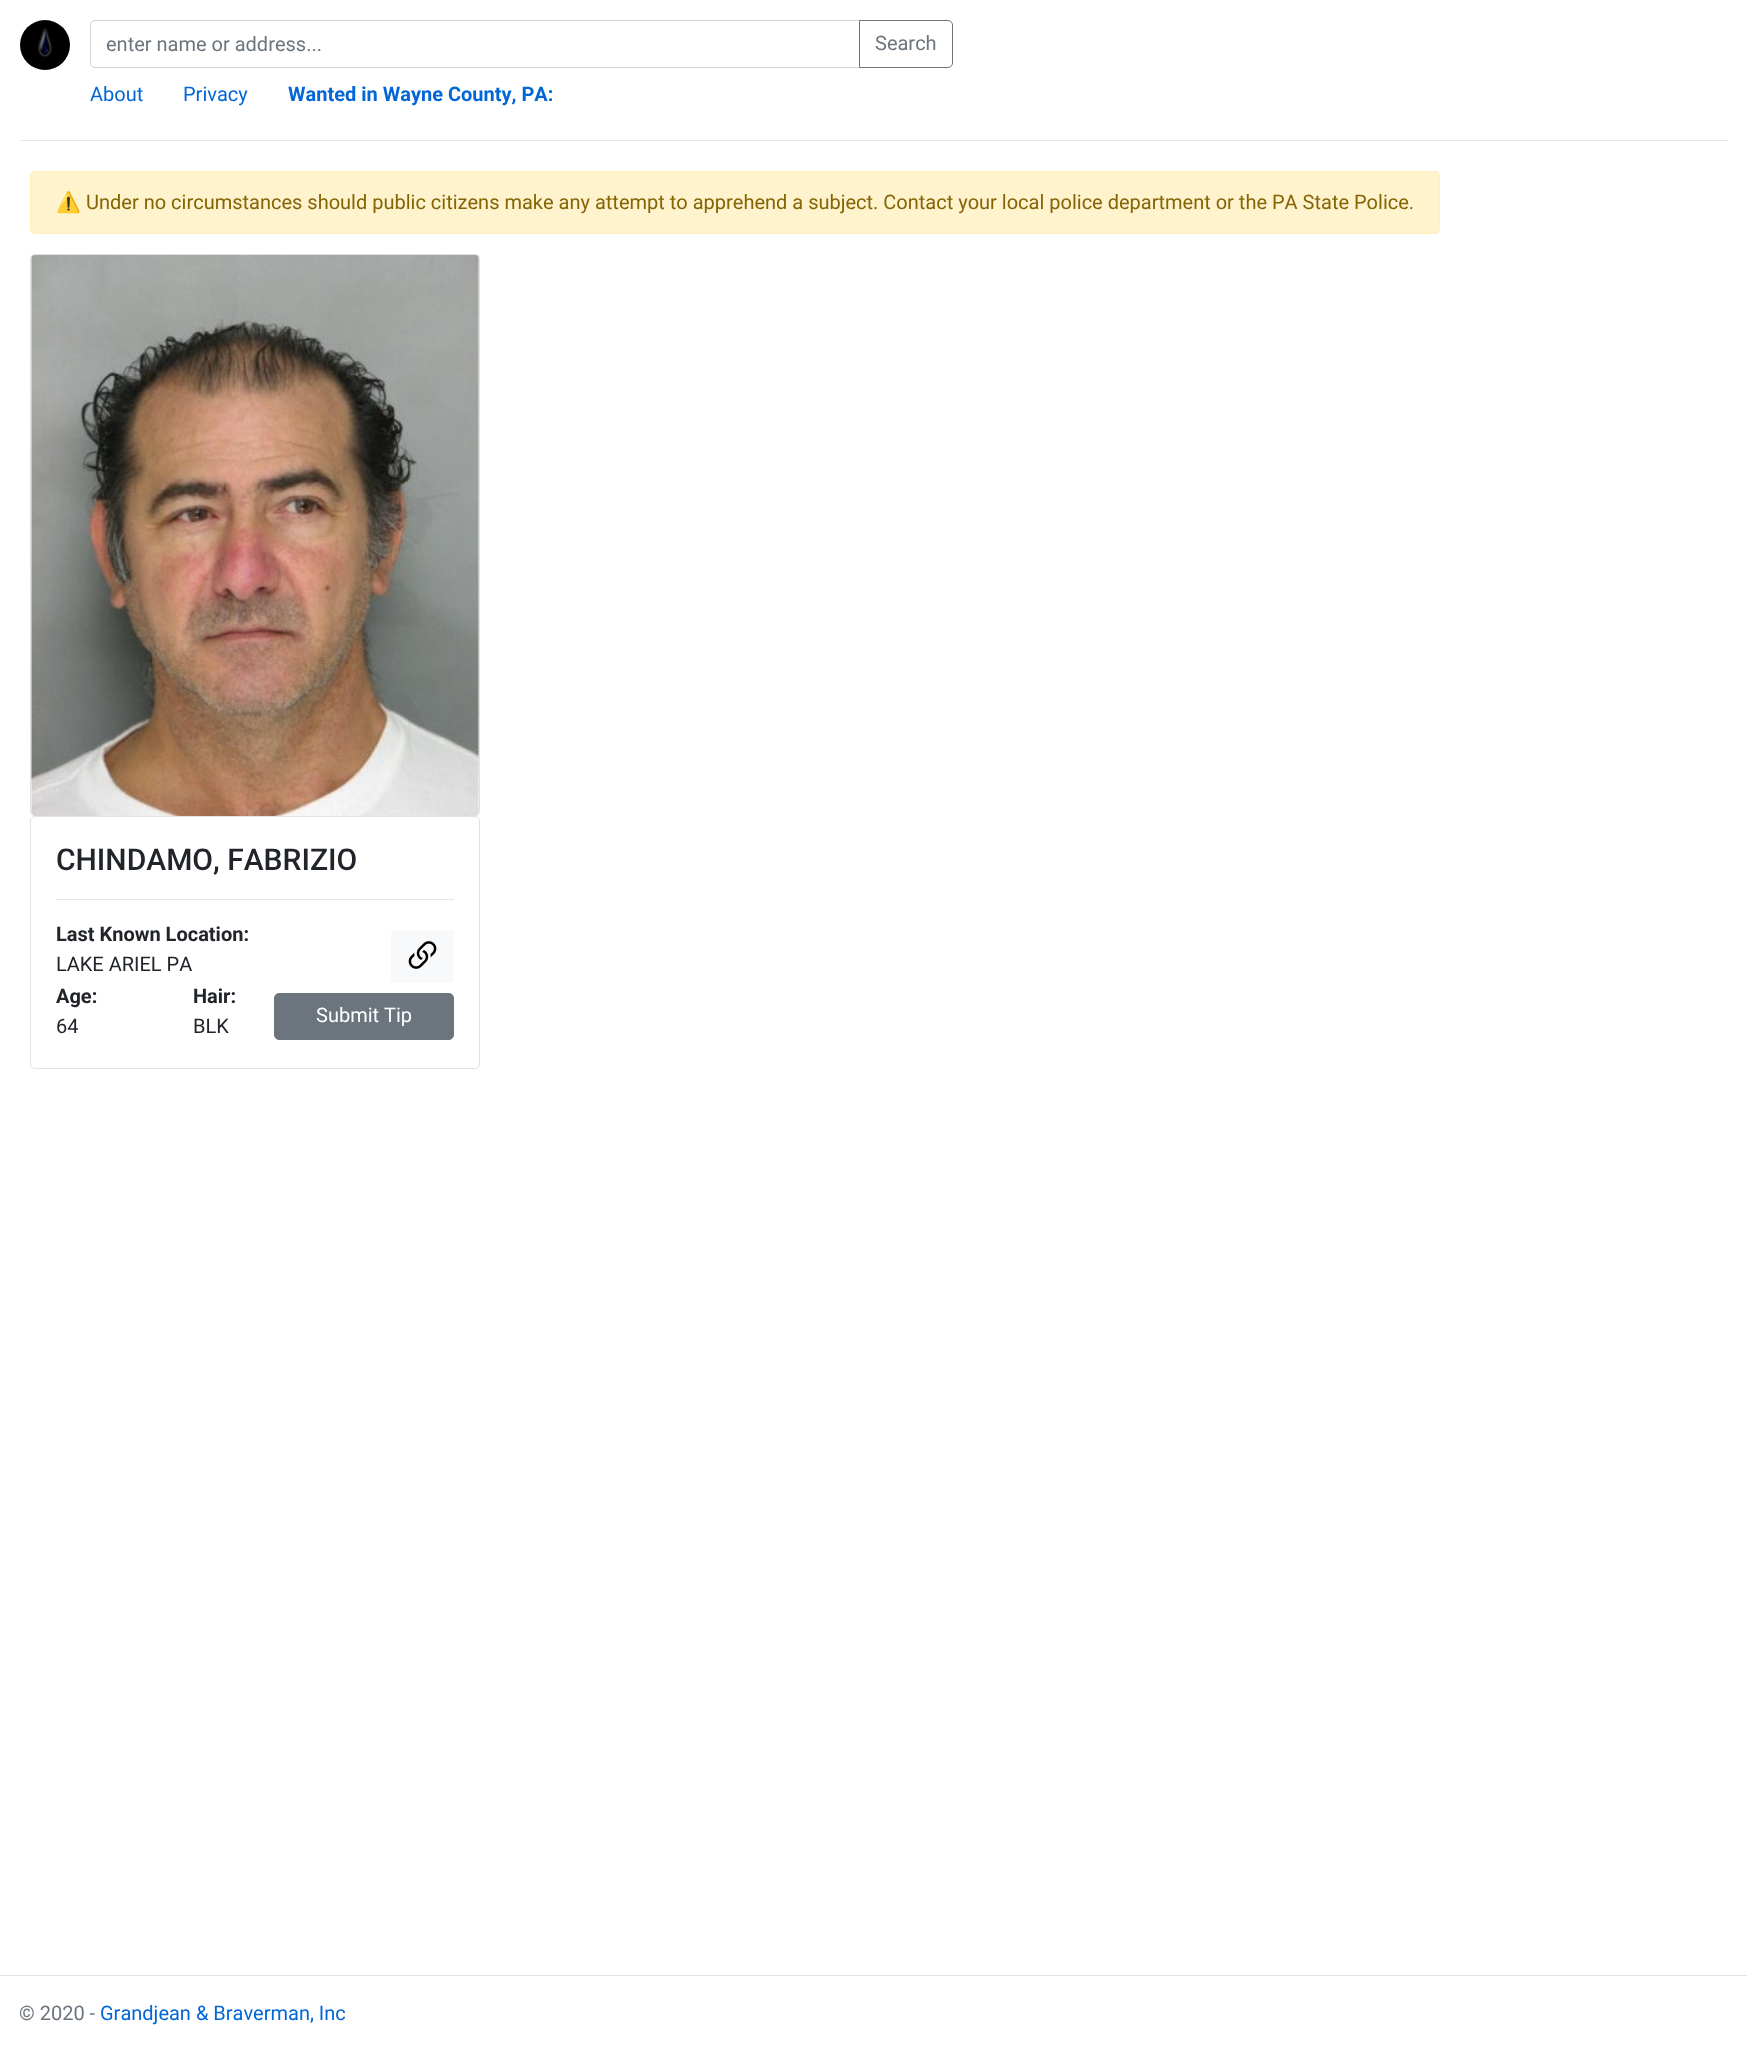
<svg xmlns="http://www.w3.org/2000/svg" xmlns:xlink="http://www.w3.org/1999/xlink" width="1747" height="2051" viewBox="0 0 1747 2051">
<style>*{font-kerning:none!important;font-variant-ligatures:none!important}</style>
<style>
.cls-1{font:20px Roboto;fill:#6c757d}
.cls-2{font:20px Roboto;fill:#0366d6}
.cls-3{font:bold 20px Roboto;fill:#0366d6}
.cls-4{font:20px Noto Color Emoji;fill:#856404}
.cls-5{font:20px Roboto;fill:#856404}
.cls-6{font:500 30px Roboto;fill:#212529}
.cls-7{font:bold 20px Roboto;fill:#212529}
.cls-8{font:20px Roboto;fill:#212529}
.cls-9{font:20px Roboto;fill:#ffffff}
</style>
<rect width="100%" height="100%" fill="#ffffff"/>
<image xlink:href="image0.png" x="20" y="20" width="50" height="50"/>
<path fill="none" stroke="#ced4da" d="M95 20.5H859.5V67.5H95C92.5 67.5 90.5 65.5 90.5 63V25C90.5 22.5 92.5 20.5 95 20.5Z"/>
<path fill="none" stroke="#6c757d" d="M859.5 20.5H948C950.5 20.5 952.5 22.5 952.5 25V63C952.5 65.5 950.5 67.5 948 67.5H859.5Z"/>
<rect fill="#e6e6e6" x="20" y="140" width="1708" height="1"/>
<rect fill="#fff3cd" stroke="#ffeeba" x="30.5" y="171.5" width="1409" height="62" rx="4.5"/>
<path fill="#dee2e6" fill-rule="evenodd" d="M35 254H475C478 254 480 256 480 259V811C480 814 478 816 475 816H35C32 816 30 814 30 811V259C30 256 32 254 35 254ZM35 255H475C477 255 479 257 479 259V811C479 814 477 816 475 816H35C33 816 31 814 31 811V259C31 257 33 255 35 255Z"/>
<image xlink:href="image1.png" x="31" y="255" width="448" height="562"/>
<rect fill="none" stroke="#dee2e6" x="30.5" y="816.5" width="449" height="252" rx="4.5"/>
<rect fill="#e6e6e6" x="56" y="899" width="398" height="1"/>
<rect fill="#f8f9fa" x="391" y="930" width="63" height="53" rx="4"/>
<image xlink:href="image2.png" x="408" y="941" width="29" height="28"/>
<rect fill="#6c757d" stroke="#6c757d" x="274.5" y="993.5" width="179" height="46" rx="4.5"/>
<rect fill="#dee2e6" x="0" y="1975" width="1747" height="1"/>
<text class="cls-1" x="106" y="51">enter name or address...</text>
<text class="cls-1" x="875" y="50">Search</text>
<text class="cls-2" x="90" y="101">About</text>
<text class="cls-2" x="183" y="101">Privacy</text>
<text class="cls-3" x="288" y="101">Wanted in Wayne County, PA:</text>
<text class="cls-4" x="56" y="209">⚠</text>
<text class="cls-5" x="86" y="209">Under no circumstances should public citizens make any attempt to apprehend a subject. Contact your local police department or the PA State Police.</text>
<text class="cls-6" x="56" y="870">CHINDAMO, FABRIZIO</text>
<text class="cls-7" x="56" y="941">Last Known Location:</text>
<text class="cls-8" x="56" y="971">LAKE ARIEL PA</text>
<text class="cls-7" x="56" y="1003">Age:</text>
<text class="cls-8" x="56" y="1033">64</text>
<text class="cls-7" x="193" y="1003">Hair:</text>
<text class="cls-8" x="193" y="1033">BLK</text>
<text class="cls-9" x="316" y="1022">Submit Tip</text>
<text class="cls-1" x="19" y="2020">© 2020 -</text>
<text class="cls-2" x="100" y="2020">Grandjean &amp; Braverman, Inc</text>
</svg>
